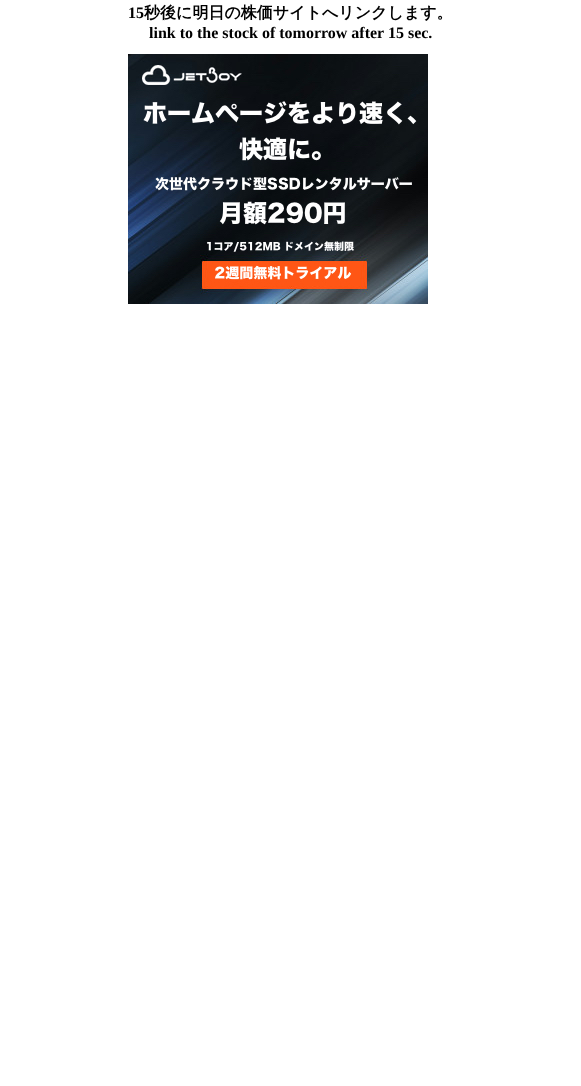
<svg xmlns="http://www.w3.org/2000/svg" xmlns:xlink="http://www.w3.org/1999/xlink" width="581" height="1086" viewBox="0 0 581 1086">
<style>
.cls-1{font:bold 16px Liberation Serif;fill:#000000}
.cls-2{font:bold 16px WenQuanYi Zen Hei;fill:#000000}
</style>
<rect width="100%" height="100%" fill="#ffffff"/>
<image xlink:href="image0.png" x="128" y="54" width="300" height="250"/>
<text class="cls-1" x="128" y="18">15</text>
<text class="cls-2" x="144" y="18">秒後に明日の株価サイトへリンクします。</text>
<text class="cls-1" x="149" y="38">link to the stock of tomorrow after 15 sec.</text>
</svg>
